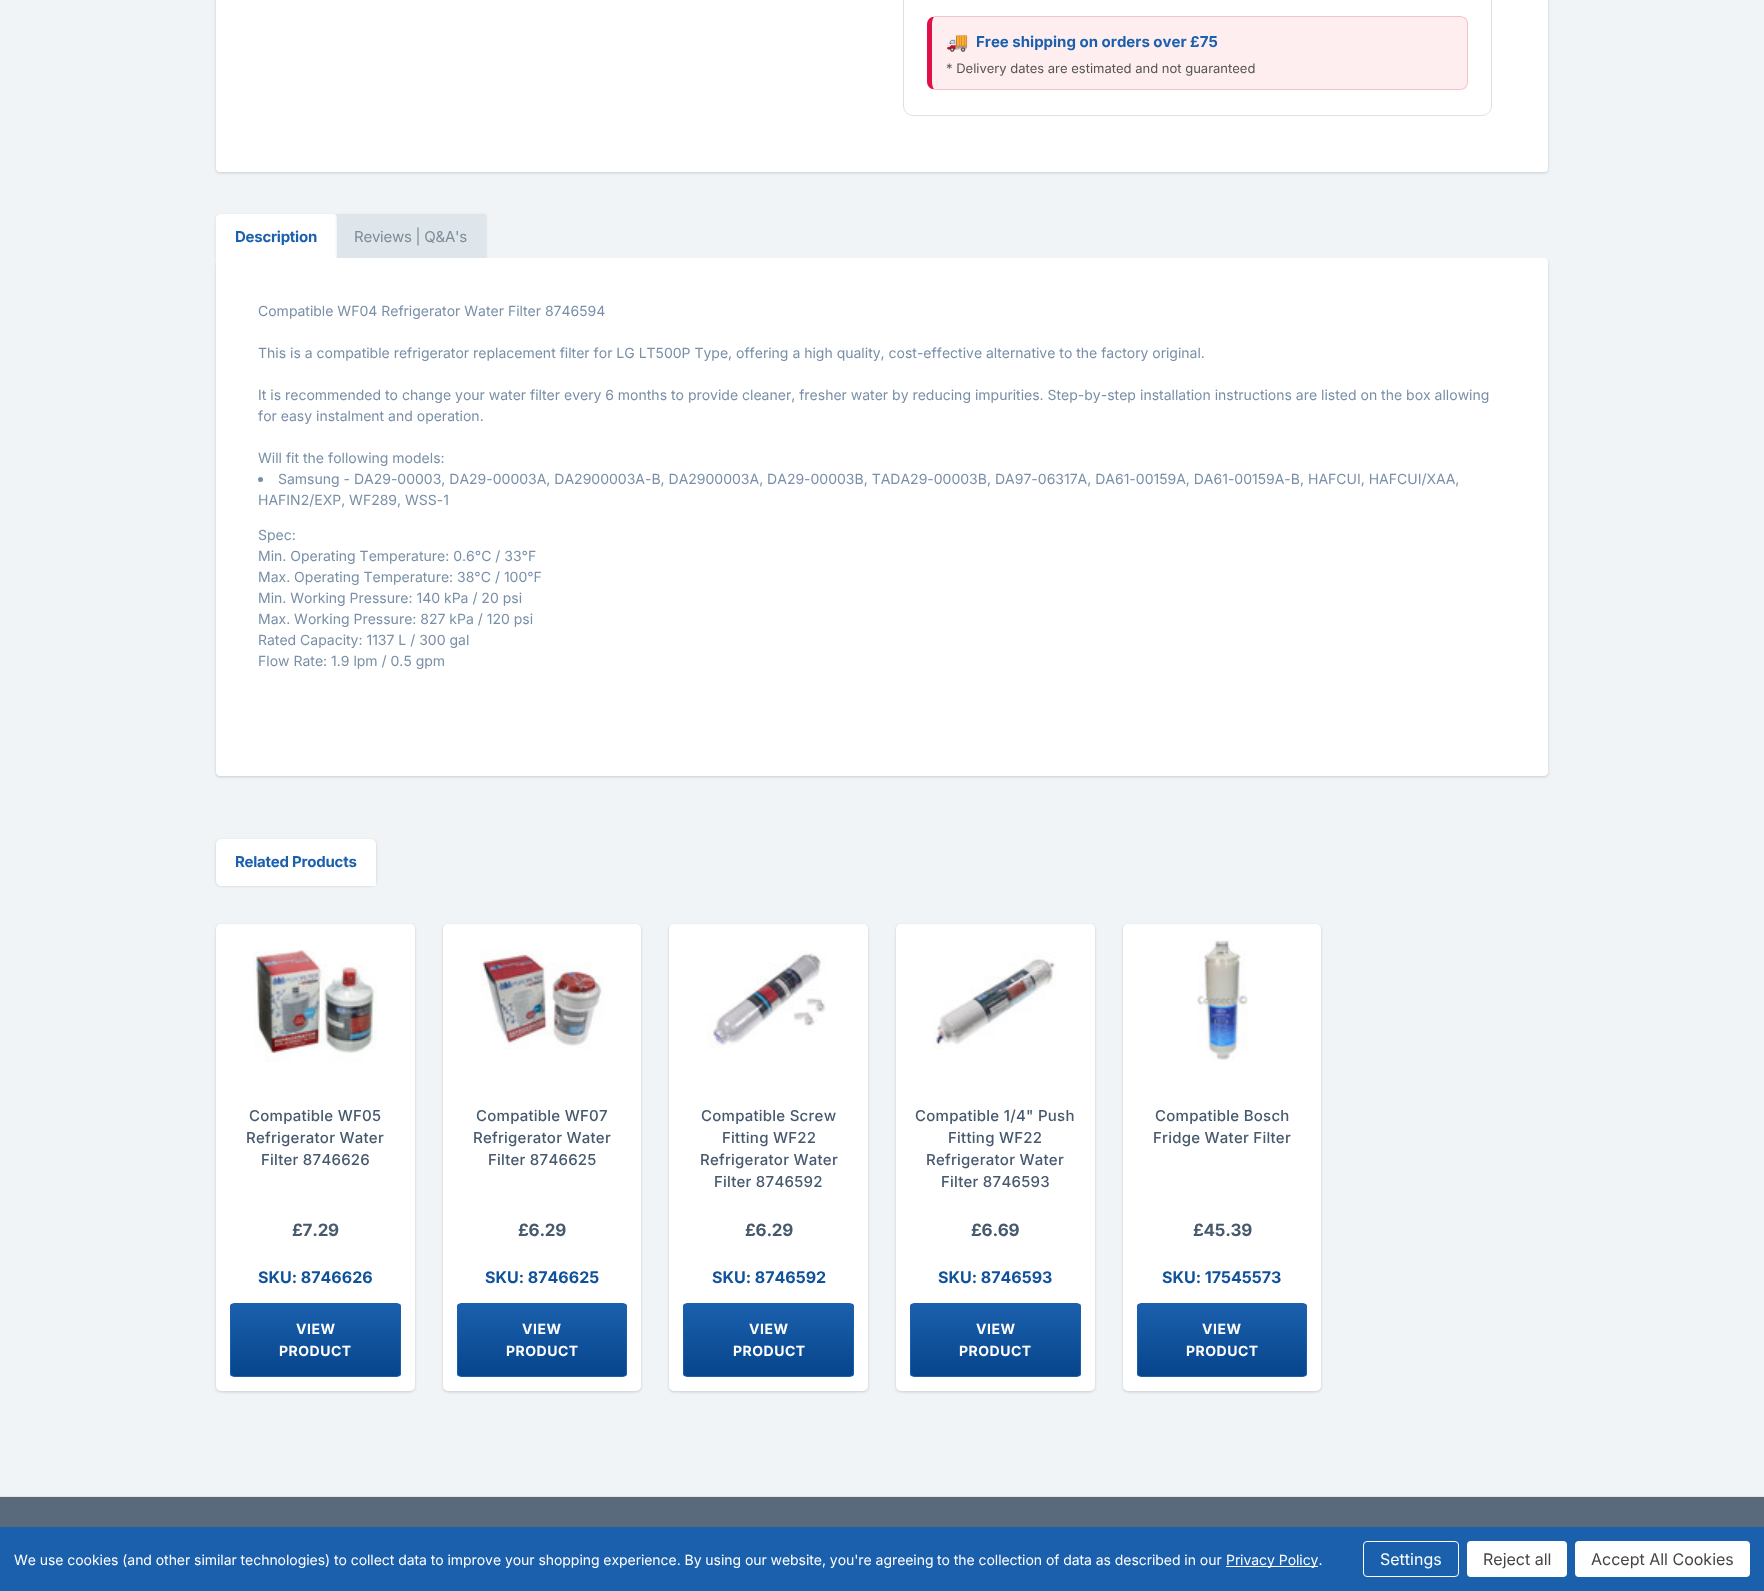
<svg xmlns="http://www.w3.org/2000/svg" xmlns:xlink="http://www.w3.org/1999/xlink" width="1764" height="1591" viewBox="0 0 1764 1591">
<style>*{font-kerning:none!important;font-variant-ligatures:none!important}</style>
<style>
.cls-1{font:bold 18px Noto Color Emoji;fill:#326eb4}
.cls-2{font:bold 15px Inter;fill:#1b60ad}
.cls-3{font:13px Inter;fill:#555555}
.cls-4{font:bold 15px Inter;letter-spacing:-0.25px;fill:#1b60ad}
.cls-5{font:15px Inter;letter-spacing:-0.25px;fill:#7c8c96}
.cls-6{font:14px Inter;fill:#798fa7}
.cls-7{font:500 15px Inter;letter-spacing:0.25px;fill:#47596d}
.cls-8{font:bold 17px Inter;letter-spacing:-0.25px;fill:#47596d}
.cls-9{font:bold 16px Inter;fill:#0f519a}
.cls-10{font:bold 14px Inter;letter-spacing:0.5px;fill:#ffffff}
.cls-11{font:14px Inter;letter-spacing:-0.05px;fill:#ffffff}
.cls-12{font:16px Inter;fill:#ffffff}
.cls-13{font:16px Inter;fill:#454545}
</style>
<defs>
<clipPath id="clip1"><rect x="230" y="1303" width="171" height="74" rx="4"/></clipPath>
<linearGradient id="g1" gradientUnits="userSpaceOnUse" x1="316" y1="1304" x2="316" y2="1376"><stop offset="0" stop-color="#1b60ad"/><stop offset="1" stop-color="#06458c"/></linearGradient>
<clipPath id="clip2"><rect x="457" y="1303" width="170" height="74" rx="4"/></clipPath>
<linearGradient id="g2" gradientUnits="userSpaceOnUse" x1="542" y1="1304" x2="542" y2="1376"><stop offset="0" stop-color="#1b60ad"/><stop offset="1" stop-color="#06458c"/></linearGradient>
<clipPath id="clip3"><rect x="683" y="1303" width="171" height="74" rx="4"/></clipPath>
<linearGradient id="g3" gradientUnits="userSpaceOnUse" x1="769" y1="1304" x2="769" y2="1376"><stop offset="0" stop-color="#1b60ad"/><stop offset="1" stop-color="#06458c"/></linearGradient>
<clipPath id="clip4"><rect x="910" y="1303" width="171" height="74" rx="4"/></clipPath>
<linearGradient id="g4" gradientUnits="userSpaceOnUse" x1="996" y1="1304" x2="996" y2="1376"><stop offset="0" stop-color="#1b60ad"/><stop offset="1" stop-color="#06458c"/></linearGradient>
<clipPath id="clip5"><rect x="1137" y="1303" width="170" height="74" rx="4"/></clipPath>
<linearGradient id="g5" gradientUnits="userSpaceOnUse" x1="1222" y1="1304" x2="1222" y2="1376"><stop offset="0" stop-color="#1b60ad"/><stop offset="1" stop-color="#06458c"/></linearGradient>
</defs>
<rect width="100%" height="100%" fill="#f0f4f6"/>
<rect fill="#000000" fill-opacity="0.06" filter="blur(1px)" x="216" y="-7" width="1332" height="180" rx="4"/>
<rect fill="#000000" fill-opacity="0.1" filter="blur(1.5px)" x="216" y="-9" width="1332" height="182" rx="4"/>
<rect fill="#ffffff" x="216" y="-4" width="1332" height="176" rx="4"/>
<rect fill="none" stroke="#e0e0e0" x="903.5" y="-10.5" width="588" height="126" rx="9.5"/>
<path fill="#ffeef0" d="M935 17H1460C1464 17 1467 20 1467 24V82C1467 86 1464 89 1460 89H935C933 89 932 86 932 82V24C932 20 933 17 935 17Z"/>
<path fill="#f5c2c7" d="M935 16L932 17H934H935H1460C1462 17 1464 18 1465 19L1466 18C1464 17 1462 16 1460 16Z"/>
<path fill="#f5c2c7" d="M1468 82V24C1468 22 1467 20 1466 18L1465 19C1466 20 1467 22 1467 24V82C1467 84 1466 86 1465 87L1466 88C1467 86 1468 84 1468 82Z"/>
<path fill="#f5c2c7" d="M935 90H1460C1462 90 1464 89 1466 88L1465 87C1464 88 1462 89 1460 89H935H934H932Z"/>
<path fill="#e01148" d="M927 24V82C927 85 929 88 932 89H934C933 88 932 85 932 82V24C932 21 933 18 934 17H932C929 18 927 21 927 24Z"/>
<rect fill="#000000" fill-opacity="0.06" filter="blur(1px)" x="216" y="260" width="1332" height="517" rx="4"/>
<rect fill="#000000" fill-opacity="0.1" filter="blur(1.5px)" x="216" y="260" width="1332" height="517" rx="4"/>
<path fill="#ffffff" d="M216 259H1544C1546 259 1548 261 1548 263V772C1548 774 1546 776 1544 776H220C218 776 216 774 216 772Z"/>
<rect fill="#000000" fill-opacity="0.1" filter="blur(1.5px)" x="216" y="215" width="121" height="46" rx="4"/>
<path fill="#ffffff" stroke="#ffffff" d="M220 214.5H333C335 214.5 336.5 216 336.5 218V259.5H216.5V218C216.5 216 218 214.5 220 214.5Z"/>
<rect fill="#000000" fill-opacity="0.1" filter="blur(1.5px)" x="337" y="215" width="149" height="45"/>
<rect fill="#dee6eb" x="337" y="214" width="149" height="44"/>
<path fill="#ffffff" d="M216 258H1544C1546 258 1548 260 1548 262V734H216Z"/>
<circle fill="#798fa7" cx="260.5" cy="479.5" r="2.5"/>
<rect fill="#000000" fill-opacity="0.06" filter="blur(1px)" x="216" y="840" width="160" height="46" rx="5"/>
<rect fill="#000000" fill-opacity="0.1" filter="blur(1.5px)" x="216" y="840" width="160" height="46" rx="5"/>
<path fill="#ffffff" stroke="#ffffff" d="M221 839.5H371C373.5 839.5 375.5 841.5 375.5 844V885.5H221C218.5 885.5 216.5 883.5 216.5 881V844C216.5 841.5 218.5 839.5 221 839.5Z"/>
<rect fill="#000000" fill-opacity="0.06" filter="blur(1px)" x="216" y="925" width="199" height="467" rx="5"/>
<rect fill="#000000" fill-opacity="0.1" filter="blur(1.5px)" x="216" y="925" width="199" height="467" rx="5"/>
<rect fill="#ffffff" x="216" y="924" width="199" height="467" rx="5"/>
<image xlink:href="image0.png" x="253" y="950" width="124" height="112"/>
<g clip-path="url(#clip1)">
<rect fill="url(#g1)" x="230" y="1304" width="171" height="72"/>
</g>
<rect fill="none" stroke="#1b60ad" x="230.5" y="1303.5" width="170" height="73" rx="3.5"/>
<rect fill="#000000" fill-opacity="0.06" filter="blur(1px)" x="443" y="925" width="198" height="467" rx="5"/>
<rect fill="#000000" fill-opacity="0.1" filter="blur(1.5px)" x="443" y="925" width="198" height="467" rx="5"/>
<rect fill="#ffffff" x="443" y="924" width="198" height="467" rx="5"/>
<image xlink:href="image1.png" x="480" y="950" width="124" height="100"/>
<g clip-path="url(#clip2)">
<rect fill="url(#g2)" x="457" y="1304" width="170" height="72"/>
</g>
<rect fill="none" stroke="#1b60ad" x="457.5" y="1303.5" width="169" height="73" rx="3.5"/>
<rect fill="#000000" fill-opacity="0.06" filter="blur(1px)" x="669" y="925" width="199" height="467" rx="5"/>
<rect fill="#000000" fill-opacity="0.1" filter="blur(1.5px)" x="669" y="925" width="199" height="467" rx="5"/>
<rect fill="#ffffff" x="669" y="924" width="199" height="467" rx="5"/>
<image xlink:href="image2.png" x="707" y="951" width="119" height="98"/>
<g clip-path="url(#clip3)">
<rect fill="url(#g3)" x="683" y="1304" width="171" height="72"/>
</g>
<rect fill="none" stroke="#1b60ad" x="683.5" y="1303.5" width="170" height="73" rx="3.5"/>
<rect fill="#000000" fill-opacity="0.06" filter="blur(1px)" x="896" y="925" width="199" height="467" rx="5"/>
<rect fill="#000000" fill-opacity="0.1" filter="blur(1.5px)" x="896" y="925" width="199" height="467" rx="5"/>
<rect fill="#ffffff" x="896" y="924" width="199" height="467" rx="5"/>
<image xlink:href="image3.png" x="933" y="952" width="124" height="98"/>
<g clip-path="url(#clip4)">
<rect fill="url(#g4)" x="910" y="1304" width="171" height="72"/>
</g>
<rect fill="none" stroke="#1b60ad" x="910.5" y="1303.5" width="170" height="73" rx="3.5"/>
<rect fill="#000000" fill-opacity="0.06" filter="blur(1px)" x="1123" y="925" width="198" height="467" rx="5"/>
<rect fill="#000000" fill-opacity="0.1" filter="blur(1.5px)" x="1123" y="925" width="198" height="467" rx="5"/>
<rect fill="#ffffff" x="1123" y="924" width="198" height="467" rx="5"/>
<image xlink:href="image4.png" x="1197" y="938" width="52" height="123"/>
<g clip-path="url(#clip5)">
<rect fill="url(#g5)" x="1137" y="1304" width="170" height="72"/>
</g>
<rect fill="none" stroke="#1b60ad" x="1137.5" y="1303.5" width="169" height="73" rx="3.5"/>
<rect fill="#596a7d" x="0" y="1497" width="1764" height="30"/>
<rect fill="#e5e5e5" x="0" y="1496" width="1764" height="1"/>
<rect fill="#1b60ad" x="0" y="1527" width="1764" height="64"/>
<rect fill="#ffffff" x="1226" y="1566" width="92" height="1"/>
<rect fill="none" stroke="#ffffff" x="1363.5" y="1541.5" width="95" height="35" rx="3.5"/>
<rect fill="#ffffff" x="1467" y="1541" width="100" height="36" rx="4"/>
<rect fill="#ffffff" x="1575" y="1541" width="175" height="36" rx="4"/>
<text class="cls-1" x="946" y="48">🚚</text>
<text class="cls-2" x="976" y="47">Free shipping on orders over £75</text>
<text class="cls-3" x="946" y="73">* Delivery dates are estimated and not guaranteed</text>
<text class="cls-4" x="235" y="242">Description</text>
<text class="cls-5" x="354" y="242">Reviews | Q&amp;A's</text>
<text class="cls-6" x="258" y="316">Compatible WF04 Refrigerator Water Filter 8746594</text>
<text class="cls-6" x="258" y="358">This is a compatible refrigerator replacement filter for LG LT500P Type,</text>
<text class="cls-6" x="736" y="358">offering a high quality, cost-effective alternative to the factory original.</text>
<text class="cls-6" x="258" y="400">It is recommended to change your water filter every 6 months to provide cleaner, fresher water by reducing impurities. Step-by-step</text>
<text class="cls-6" x="1140" y="400">installation instructions are listed on the box allowing</text>
<text class="cls-6" x="258" y="421">for easy instalment and operation.</text>
<text class="cls-6" x="258" y="463">Will fit the following models:</text>
<text class="cls-6" x="278" y="484">Samsung - DA29-00003, DA29-00003A, DA2900003A-B, DA2900003A, DA29-00003B, TADA29-00003B,</text>
<text class="cls-6" x="995" y="484">DA97-06317A, DA61-00159A, DA61-00159A-B,</text>
<text class="cls-6" x="1308" y="484">HAFCUI, HAFCUI/XAA,</text>
<text class="cls-6" x="258" y="505">HAFIN2/EXP, WF289, WSS-1</text>
<text class="cls-6"><tspan x="258" y="540">Spec:</tspan><tspan x="258" y="561">Min. Operating Temperature: 0.6°C / 33°F</tspan><tspan x="258" y="582">Max. Operating Temperature: 38°C / 100°F</tspan><tspan x="258" y="603">Min. Working Pressure: 140 kPa / 20 psi</tspan><tspan x="258" y="624">Max. Working Pressure: 827 kPa / 120 psi</tspan><tspan x="258" y="645">Rated Capacity: 1137 L / 300 gal</tspan><tspan x="258" y="666">Flow Rate: 1.9 lpm / 0.5 gpm</tspan></text>
<text class="cls-4" x="235" y="867">Related Products</text>
<text class="cls-7" x="249" y="1121">Compatible WF05</text>
<text class="cls-7" x="246" y="1143">Refrigerator Water</text>
<text class="cls-7" x="261" y="1165">Filter 8746626</text>
<text class="cls-8" x="292" y="1236">£7.29</text>
<text class="cls-9" x="258" y="1283">SKU: 8746626</text>
<text class="cls-10" x="296" y="1334">VIEW</text>
<text class="cls-10" x="279" y="1356">PRODUCT</text>
<text class="cls-7" x="476" y="1121">Compatible WF07</text>
<text class="cls-7" x="473" y="1143">Refrigerator Water</text>
<text class="cls-7" x="488" y="1165">Filter 8746625</text>
<text class="cls-8" x="518" y="1236">£6.29</text>
<text class="cls-9" x="485" y="1283">SKU: 8746625</text>
<text class="cls-10" x="522" y="1334">VIEW</text>
<text class="cls-10" x="506" y="1356">PRODUCT</text>
<text class="cls-7" x="701" y="1121">Compatible Screw</text>
<text class="cls-7" x="722" y="1143">Fitting WF22</text>
<text class="cls-7" x="700" y="1165">Refrigerator Water</text>
<text class="cls-7" x="714" y="1187">Filter 8746592</text>
<text class="cls-8" x="745" y="1236">£6.29</text>
<text class="cls-9" x="712" y="1283">SKU: 8746592</text>
<text class="cls-10" x="749" y="1334">VIEW</text>
<text class="cls-10" x="733" y="1356">PRODUCT</text>
<text class="cls-7" x="915" y="1121">Compatible 1/4" Push</text>
<text class="cls-7" x="948" y="1143">Fitting WF22</text>
<text class="cls-7" x="926" y="1165">Refrigerator Water</text>
<text class="cls-7" x="941" y="1187">Filter 8746593</text>
<text class="cls-8" x="971" y="1236">£6.69</text>
<text class="cls-9" x="938" y="1283">SKU: 8746593</text>
<text class="cls-10" x="976" y="1334">VIEW</text>
<text class="cls-10" x="959" y="1356">PRODUCT</text>
<text class="cls-7" x="1155" y="1121">Compatible Bosch</text>
<text class="cls-7" x="1153" y="1143">Fridge Water Filter</text>
<text class="cls-8" x="1193" y="1236">£45.39</text>
<text class="cls-9" x="1162" y="1283">SKU: 17545573</text>
<text class="cls-10" x="1202" y="1334">VIEW</text>
<text class="cls-10" x="1186" y="1356">PRODUCT</text>
<text class="cls-11" x="14" y="1565">We use cookies (and other similar technologies) to collect data to improve your shopping experience. By using our website, you're agreeing</text>
<text class="cls-11" x="937" y="1565">to the collection of data as described in our</text>
<text class="cls-11" x="1226" y="1565">Privacy Policy.</text>
<text class="cls-12" x="1380" y="1565">Settings</text>
<text class="cls-13" x="1483" y="1565">Reject all</text>
<text class="cls-13" x="1591" y="1565">Accept All Cookies</text>
</svg>
